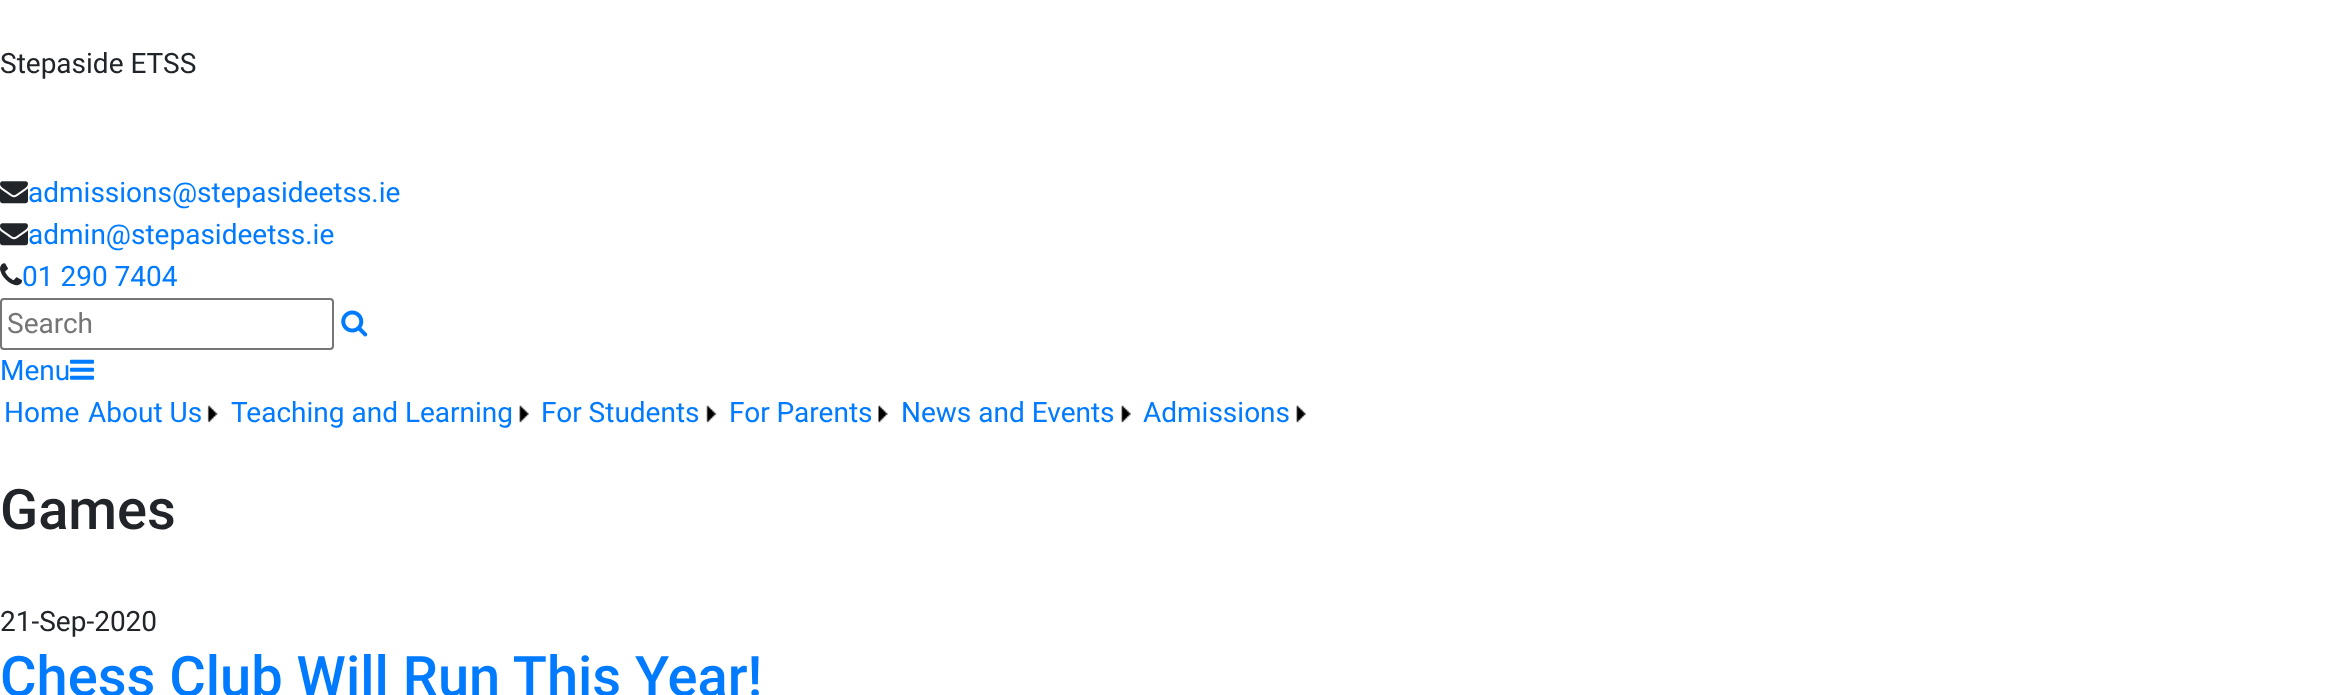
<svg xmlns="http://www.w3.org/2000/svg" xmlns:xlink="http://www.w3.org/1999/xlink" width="2342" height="695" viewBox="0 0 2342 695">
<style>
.cls-1{font:28px Roboto;fill:#212529}
.cls-2{font:28px Roboto;fill:#007bff}
.cls-3{font:28px Roboto;fill:#757575}
.cls-4{font:500 56px Roboto;fill:#212529}
.cls-5{font:500 56px Roboto;fill:#007bff}
</style>
<rect width="100%" height="100%" fill="#ffffff"/>
<image xlink:href="image0.png" x="0" y="181" width="28" height="23"/>
<image xlink:href="image0.png" x="0" y="223" width="28" height="23"/>
<image xlink:href="image1.png" x="0" y="263" width="22" height="23"/>
<rect fill="none" stroke="#767676" stroke-width="2" x="1" y="299" width="332" height="50" rx="3"/>
<image xlink:href="image2.png" x="341" y="310" width="27" height="27"/>
<image xlink:href="image3.png" x="70" y="359" width="24" height="21"/>
<image xlink:href="image4.png" x="207" y="405" width="11" height="18"/>
<image xlink:href="image5.png" x="519" y="405" width="10" height="18"/>
<image xlink:href="image6.png" x="706" y="405" width="11" height="18"/>
<image xlink:href="image7.png" x="878" y="405" width="10" height="18"/>
<image xlink:href="image8.png" x="1121" y="405" width="10" height="18"/>
<image xlink:href="image5.png" x="1296" y="405" width="10" height="18"/>
<text class="cls-1" x="0" y="73">Stepaside ETSS</text>
<text class="cls-2"><tspan x="28" y="202">admissions@stepasideetss.ie</tspan><tspan x="28" y="244">admin@stepasideetss.ie</tspan></text>
<text class="cls-2" x="22" y="286">01 290 7404</text>
<text class="cls-3" x="7" y="333">Search</text>
<text class="cls-2" x="0" y="380">Menu</text>
<text class="cls-2" x="4" y="422">Home</text>
<text class="cls-2" x="88" y="422">About Us</text>
<text class="cls-2" x="231" y="422">Teaching and Learning</text>
<text class="cls-2" x="541" y="422">For Students</text>
<text class="cls-2" x="729" y="422">For Parents</text>
<text class="cls-2" x="901" y="422">News and Events</text>
<text class="cls-2" x="1143" y="422">Admissions</text>
<text class="cls-4" x="0" y="529">Games</text>
<text class="cls-1" x="0" y="631">21-Sep-2020</text>
<text class="cls-5" x="0" y="696">Chess Club Will Run This Year!</text>
</svg>
